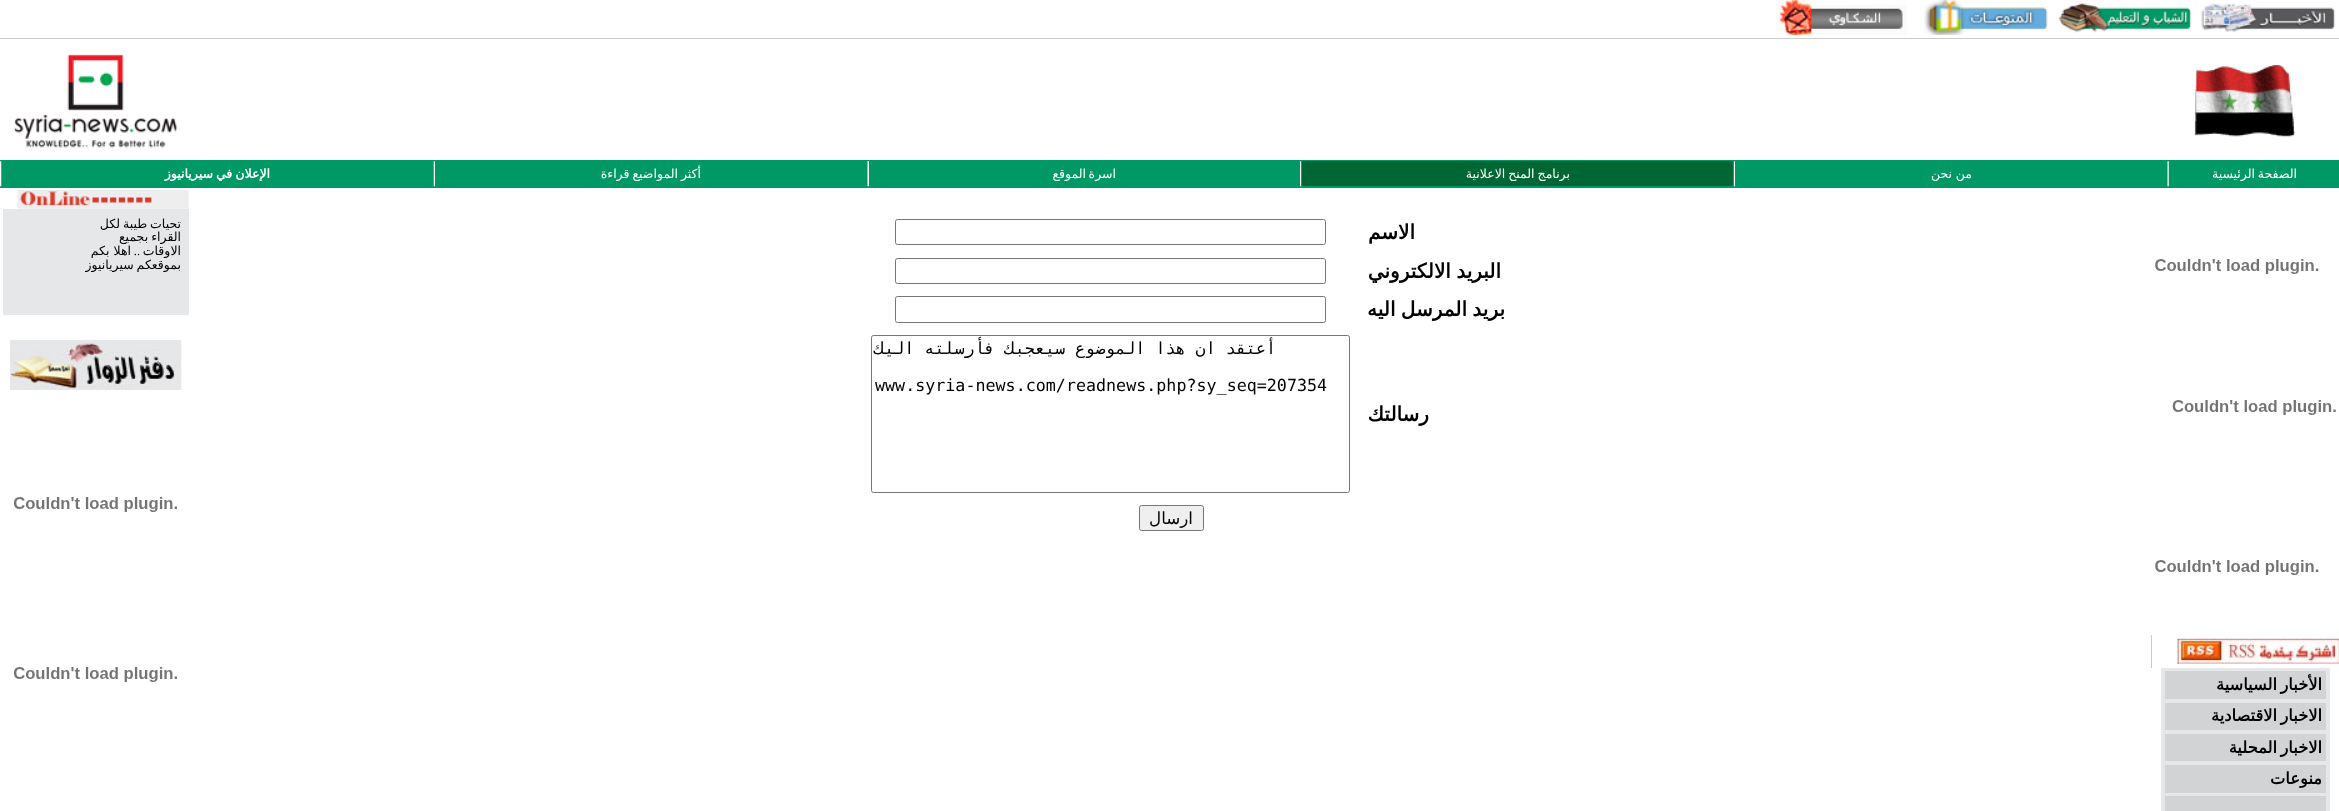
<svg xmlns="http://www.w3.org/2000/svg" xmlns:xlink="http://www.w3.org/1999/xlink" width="2339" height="811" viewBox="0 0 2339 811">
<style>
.cls-1{font:12.5px DejaVu Sans;direction:rtl;fill:#ffffff}
.cls-2{font:bold 12.5px DejaVu Sans;direction:rtl;fill:#ffffff}
.cls-3{font:bold 20px DejaVu Sans;direction:rtl;fill:#000000}
.cls-4{font:16.7px DejaVu Sans Mono;direction:rtl;fill:#000000}
.cls-5{font:16.7px DejaVu Sans Mono;fill:#000000}
.cls-6{font:16.7px DejaVu Sans;direction:rtl;fill:#000000}
.cls-7{font:12.5px DejaVu Sans;direction:rtl;fill:#000000}
.cls-8{font:12.5px Liberation Serif;direction:rtl;fill:#000000}
.cls-9{font:bold 16.25px DejaVu Sans;direction:rtl;fill:#000000}
</style>
<rect width="100%" height="100%" fill="#ffffff"/>
<rect fill="#cccccc" x="0" y="38" width="2339" height="1"/>
<image xlink:href="image0.png" x="2201" y="3" width="135" height="30"/>
<image xlink:href="image1.png" x="2058" y="3" width="134" height="30"/>
<image xlink:href="image2.png" x="1924" y="0" width="124" height="35"/>
<image xlink:href="image3.png" x="1776" y="0" width="131" height="35"/>
<image xlink:href="image4.png" x="2194" y="65" width="102" height="72"/>
<image xlink:href="image5.png" x="13" y="54" width="165" height="94"/>
<rect fill="#009966" x="0" y="160" width="2339" height="28"/>
<image xlink:href="image6.png" x="2167" y="161" width="2" height="26"/>
<rect fill="#006633" x="1301" y="161" width="433" height="25"/>
<image xlink:href="image7.png" x="1733" y="161" width="2" height="26"/>
<image xlink:href="image8.png" x="1300" y="161" width="2" height="26"/>
<rect fill="#ffffff" x="868" y="161" width="1" height="25"/>
<image xlink:href="image9.png" x="867" y="161" width="2" height="26"/>
<image xlink:href="image10.png" x="433" y="161" width="2" height="26"/>
<image xlink:href="image11.png" x="0" y="161" width="2" height="26"/>
<rect fill="none" stroke="#767676" x="895.5" y="219.5" width="430" height="25" rx="2"/>
<rect fill="none" stroke="#767676" x="895.5" y="258.5" width="430" height="25" rx="2"/>
<rect fill="none" stroke="#767676" x="895.5" y="296.5" width="430" height="26" rx="2"/>
<rect fill="none" stroke="#767676" x="871.5" y="335.5" width="478" height="157" rx="2"/>
<rect fill="#efefef" stroke="#767676" x="1139.5" y="505.5" width="64" height="25" rx="2"/>
<image xlink:href="image12.png" x="17" y="190" width="172" height="19"/>
<rect fill="#e6e7e8" x="3" y="209" width="186" height="106"/>
<image xlink:href="image13.png" x="10" y="340" width="172" height="50"/>
<image xlink:href="image14.png" x="14" y="497" width="163" height="15"/>
<image xlink:href="image14.png" x="14" y="667" width="163" height="15"/>
<image xlink:href="image15.png" x="2155" y="259" width="164" height="15"/>
<image xlink:href="image16.png" x="2172" y="400" width="164" height="15"/>
<image xlink:href="image15.png" x="2155" y="560" width="164" height="15"/>
<rect fill="#cccccc" x="2151" y="635" width="1" height="33"/>
<image xlink:href="image17.png" x="2177" y="638" width="162" height="26"/>
<rect fill="#e6e7e8" x="2161" y="668" width="169" height="143"/>
<rect fill="#d1d3d4" x="2165" y="671" width="161" height="28"/>
<rect fill="#d1d3d4" x="2165" y="703" width="161" height="27"/>
<rect fill="#d1d3d4" x="2165" y="734" width="161" height="27"/>
<rect fill="#d1d3d4" x="2165" y="765" width="161" height="28"/>
<rect fill="#d1d3d4" x="2165" y="796" width="161" height="15"/>
<text class="cls-1" x="2297" y="178">الصفحة</text>
<text class="cls-1" x="2255" y="178">الرئيسية</text>
<text class="cls-1" x="1972" y="178">من</text>
<text class="cls-1" x="1952" y="178">نحن</text>
<text class="cls-1" x="1570" y="178" word-spacing="-1">برنامج المنح الاعلانية</text>
<text class="cls-1" x="1116" y="178">اسرة</text>
<text class="cls-1" x="1086" y="178">الموقع</text>
<text class="cls-1" x="701" y="178" word-spacing="-1">أكثر المواضيع قراءة</text>
<text class="cls-2" x="270" y="178" word-spacing="-1">الإعلان في سيريانيوز</text>
<text class="cls-3" x="1415" y="239">الاسم</text>
<text class="cls-3" x="1501" y="278" word-spacing="-1">البريد الالكتروني</text>
<text class="cls-3" x="1505" y="316" word-spacing="-1">بريد المرسل اليه</text>
<text class="cls-4" x="1276" y="354">أعتقد ان هذا الموضوع سيعجبك فأرسلته اليك</text>
<text class="cls-5" x="875" y="391">www.syria-news.com/readnews.php?sy_seq=207354</text>
<text class="cls-3" x="1429" y="421">رسالتك</text>
<text class="cls-6" x="1193" y="524">ارسال</text>
<text class="cls-7"><tspan x="181" y="228" word-spacing="-1">تحيات طيبة لكل</tspan><tspan x="181" y="241" word-spacing="-1">القراء بجميع</tspan><tspan x="181" y="255">الاوقات</tspan></text>
<text class="cls-8" x="140" y="255">..</text>
<text class="cls-7" x="131" y="255">اهلا بكم</text>
<text class="cls-7" x="181" y="269" word-spacing="-1">بموقعكم سيريانيوز</text>
<text class="cls-9" x="2322" y="690">الأخبار</text>
<text class="cls-9" x="2277" y="690">السياسية</text>
<text class="cls-9" x="2322" y="721">الاخبار</text>
<text class="cls-9" x="2277" y="721">الاقتصادية</text>
<text class="cls-9" x="2322" y="753">الاخبار</text>
<text class="cls-9" x="2277" y="753">المحلية</text>
<text class="cls-9" x="2322" y="784">منوعات</text>
</svg>
